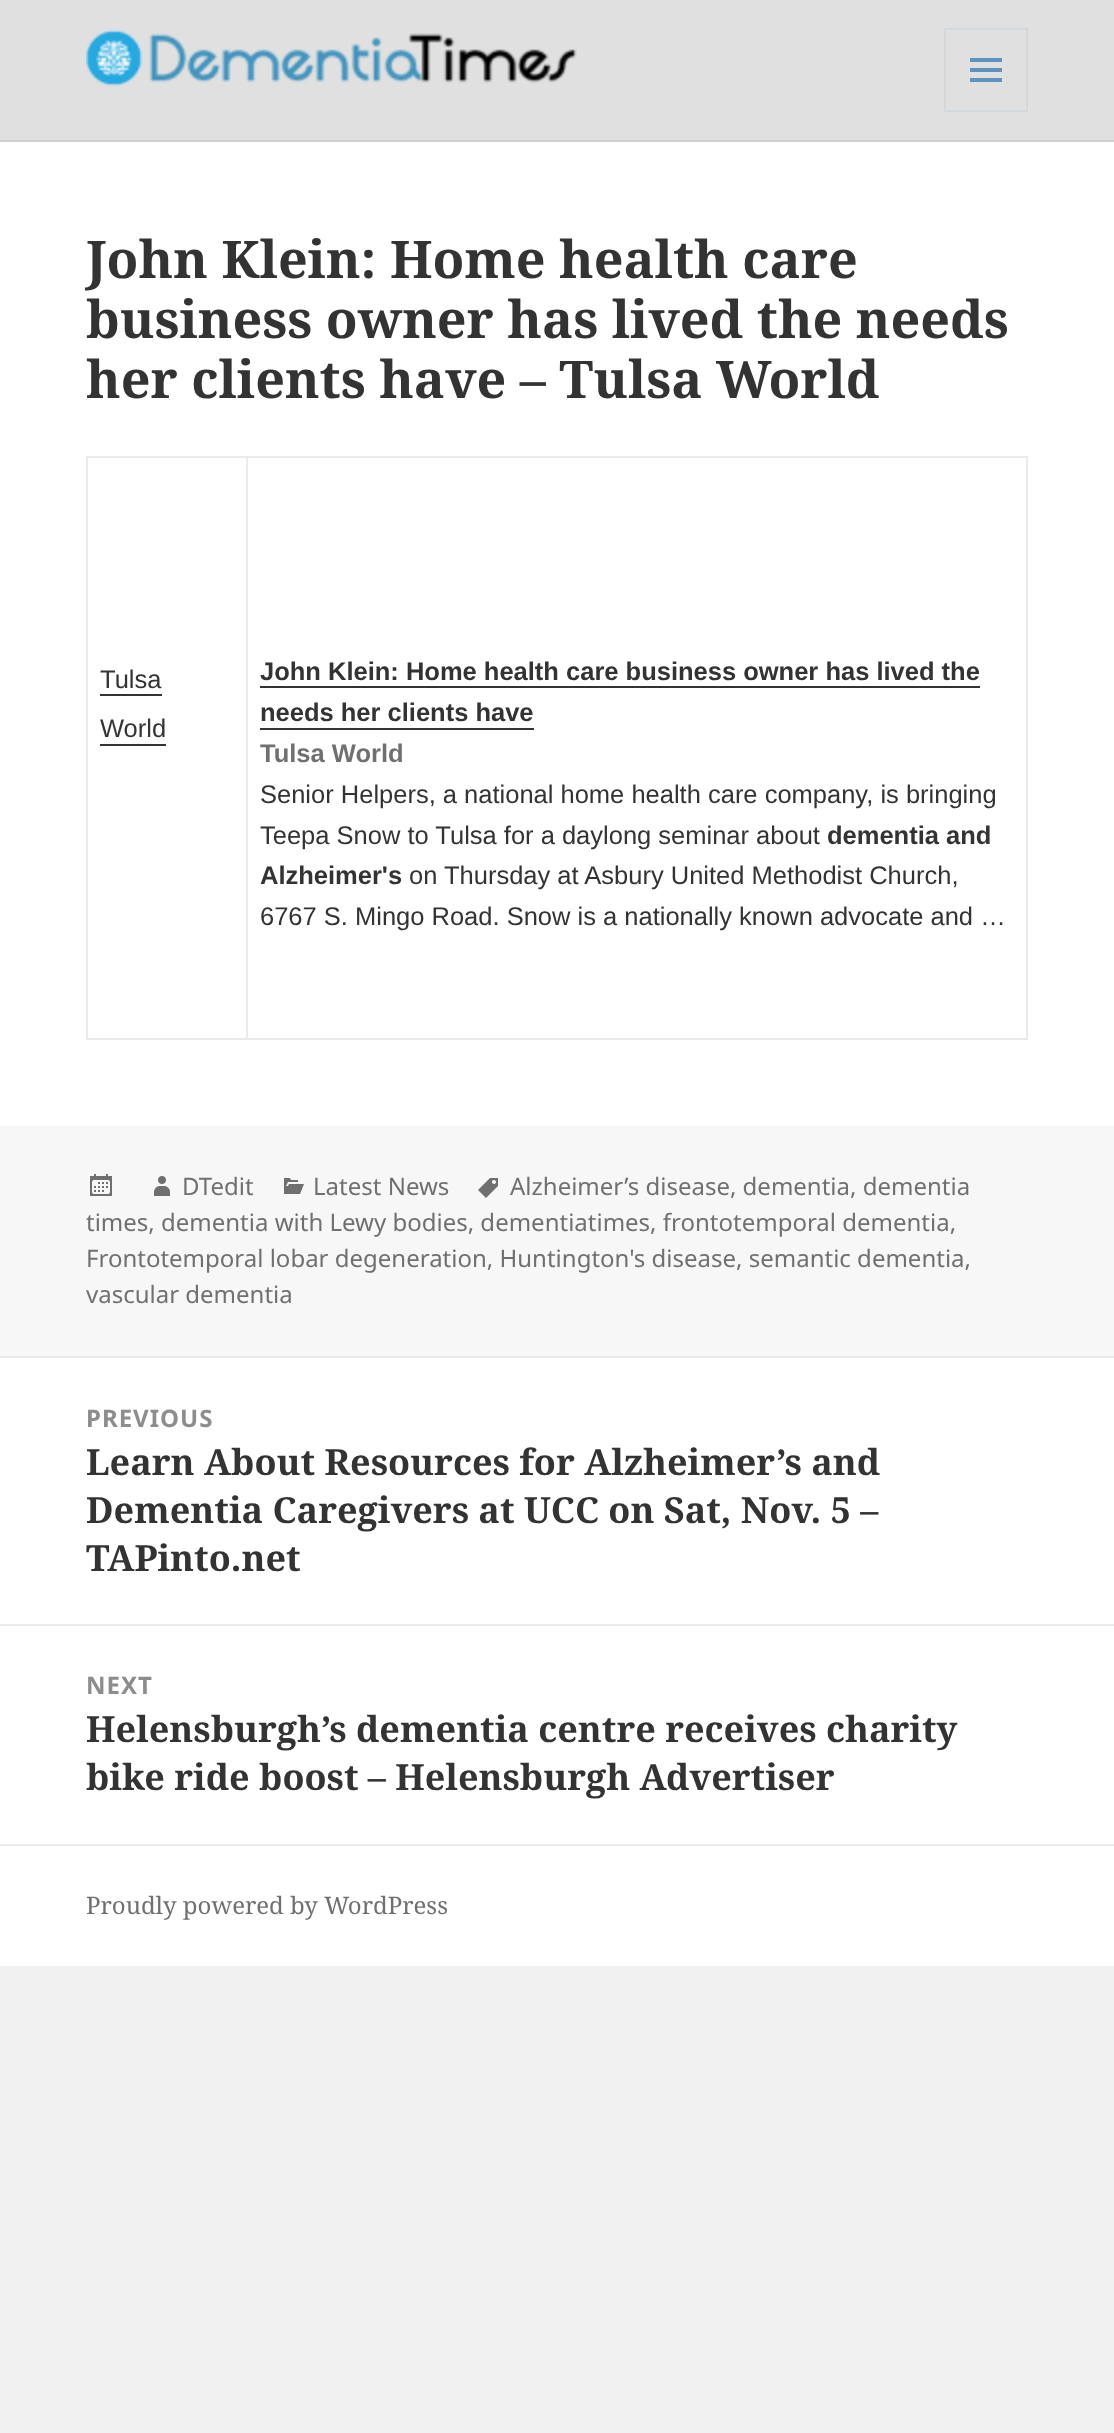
<svg xmlns="http://www.w3.org/2000/svg" xmlns:xlink="http://www.w3.org/1999/xlink" width="1114" height="2433" viewBox="0 0 1114 2433">
<style>
.cls-1{font:bold 52px Noto Serif;fill:#333333}
.cls-2{font:25.5px Liberation Sans;fill:#333333}
.cls-3{font:bold 25.5px Liberation Sans;fill:#333333}
.cls-4{font:bold 25.5px Liberation Sans;fill:#707070}
.cls-5{font:24px Noto Sans;fill:#707070}
.cls-6{font:bold 24px Noto Sans;letter-spacing:1px;fill:#8d8d8d}
.cls-7{font:bold 36px Noto Serif;fill:#333333}
.cls-8{font:24px Noto Serif;fill:#707070}
</style>
<rect width="100%" height="100%" fill="#f1f1f1"/>
<rect fill="#e0e0e0" x="0" y="0" width="1114" height="140"/>
<rect fill="#cfcfcf" x="0" y="140" width="1114" height="2"/>
<image xlink:href="image0.png" x="86" y="29" width="491" height="58"/>
<rect fill="none" stroke="#d3d8dd" stroke-width="2" x="945" y="29" width="82" height="82"/>
<image xlink:href="image1.png" x="970" y="58" width="32" height="24"/>
<rect fill="#ffffff" x="0" y="142" width="1114" height="984"/>
<path fill="#ebebeb" d="M86 456H1028V458H88Z"/>
<path fill="#333333" fill-opacity="0.1" d="M86 1040V456L88 458V1040Z"/>
<path fill="#ebebeb" d="M248 458V1040L246 1038V458Z"/>
<path fill="#333333" fill-opacity="0.1" d="M248 1040H88V1038H246Z"/>
<rect fill="#333333" x="100" y="694" width="62" height="2"/>
<rect fill="#333333" x="100" y="744" width="66" height="2"/>
<path fill="#ebebeb" d="M1028 458V1040L1026 1038V458Z"/>
<path fill="#333333" fill-opacity="0.1" d="M1028 1040H248V1038H1026Z"/>
<rect fill="#333333" x="260" y="686" width="720" height="2"/>
<rect fill="#333333" x="260" y="728" width="274" height="2"/>
<rect fill="#f7f7f7" x="0" y="1126" width="1114" height="230"/>
<image xlink:href="image2.png" x="90" y="1174" width="22" height="22"/>
<image xlink:href="image3.png" x="478" y="1178" width="20" height="20"/>
<image xlink:href="image4.png" x="154" y="1176" width="16" height="20"/>
<image xlink:href="image5.png" x="284" y="1178" width="20" height="16"/>
<rect fill="#ffffff" x="0" y="1358" width="1114" height="486"/>
<rect fill="#ebebeb" x="0" y="1356" width="1114" height="2"/>
<rect fill="#ebebeb" x="0" y="1624" width="1114" height="2"/>
<rect fill="#ffffff" x="0" y="1846" width="1114" height="120"/>
<rect fill="#ebebeb" x="0" y="1844" width="1114" height="2"/>
<text class="cls-1"><tspan x="86" y="278">John Klein: Home health care</tspan><tspan x="86" y="338">business owner has lived the needs</tspan><tspan x="86" y="398">her clients have – Tulsa World</tspan></text>
<text class="cls-2"><tspan x="100" y="688">Tulsa</tspan><tspan x="100" y="737">World</tspan></text>
<text class="cls-3"><tspan x="260" y="680">John Klein: Home health care business owner has lived the</tspan><tspan x="260" y="721">needs her clients have</tspan></text>
<text class="cls-4" x="260" y="762">Tulsa World</text>
<text class="cls-2"><tspan x="260" y="803">Senior Helpers, a national home health care company, is bringing</tspan><tspan x="260" y="844">Teepa Snow to Tulsa for a daylong seminar about</tspan></text>
<text class="cls-3" x="827" y="844">dementia and</text>
<text class="cls-3" x="260" y="884">Alzheimer's</text>
<text class="cls-2" x="409" y="884">on Thursday at Asbury United Methodist Church,</text>
<text class="cls-2" x="260" y="925">6767 S. Mingo Road. Snow is a nationally known advocate and …</text>
<text class="cls-5" x="510" y="1195">Alzheimer’s disease, dementia, dementia</text>
<text class="cls-5"><tspan x="86" y="1231">times, dementia with Lewy bodies, dementiatimes, frontotemporal dementia,</tspan><tspan x="86" y="1267">Frontotemporal lobar degeneration, Huntington's disease, semantic dementia,</tspan><tspan x="86" y="1303">vascular dementia</tspan></text>
<text class="cls-5" x="182" y="1195">DTedit</text>
<text class="cls-5" x="313" y="1195">Latest News</text>
<text class="cls-6" x="86" y="1427">PREVIOUS</text>
<text class="cls-7"><tspan x="86" y="1475">Learn About Resources for Alzheimer’s and</tspan><tspan x="86" y="1523">Dementia Caregivers at UCC on Sat, Nov. 5 –</tspan><tspan x="86" y="1571">TAPinto.net</tspan></text>
<text class="cls-6" x="86" y="1694">NEXT</text>
<text class="cls-7"><tspan x="86" y="1742">Helensburgh’s dementia centre receives charity</tspan><tspan x="86" y="1790">bike ride boost – Helensburgh Advertiser</tspan></text>
<text class="cls-8" x="86" y="1914">Proudly powered by WordPress</text>
</svg>
